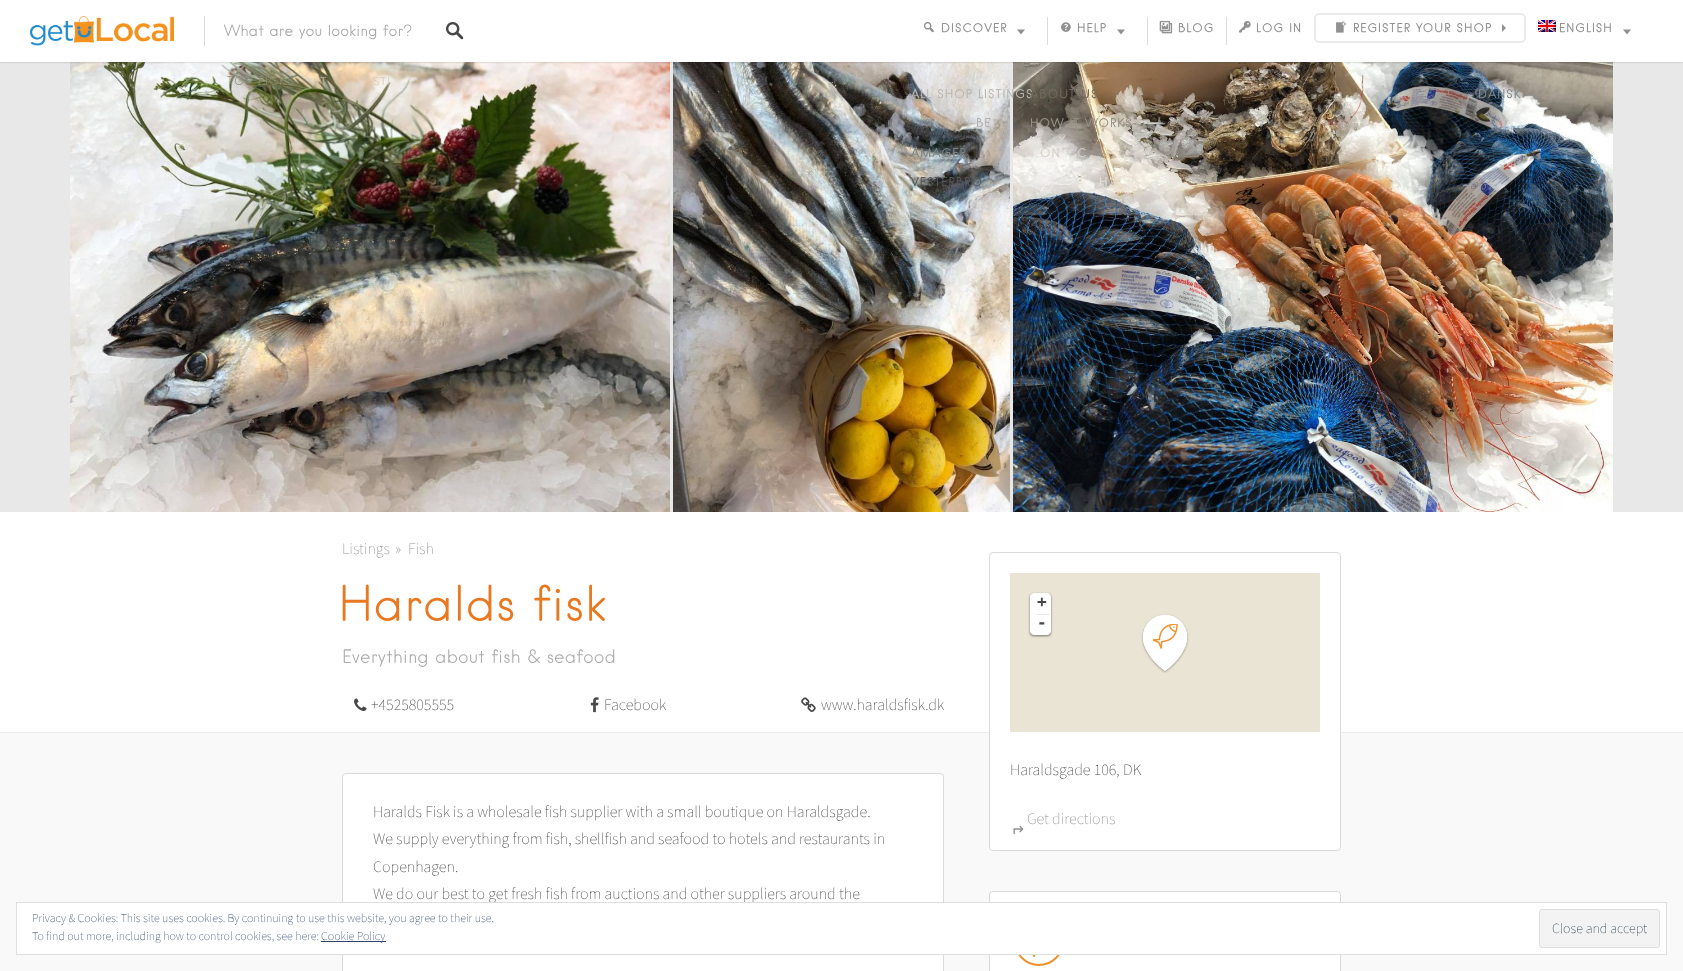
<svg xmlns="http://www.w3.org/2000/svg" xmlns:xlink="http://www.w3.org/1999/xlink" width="1683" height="971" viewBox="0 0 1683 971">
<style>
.cls-1{font:300 15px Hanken;fill:#a4a4a4}
.cls-2{font:300 11.5px Hanken;letter-spacing:1px;fill:#8d8e74}
.cls-3{font:300 12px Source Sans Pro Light;letter-spacing:1px;fill:#d2c4ae}
.cls-4{font:11.5px Hanken;letter-spacing:1px;fill:#919191}
.cls-5{font:11.5px Hanken;letter-spacing:1px;fill:#b9b7b4}
.cls-6{font:11.5px Hanken;letter-spacing:1px;fill:#b3b1ae}
.cls-7{font:11.5px Hanken;letter-spacing:1px;fill:#7d8585}
.cls-8{font:11.5px Hanken;letter-spacing:1px;fill:#565859}
.cls-9{font:11.5px Hanken;letter-spacing:1px;fill:#746b5a}
.cls-10{font:11.5px Hanken;letter-spacing:1px;fill:#999184}
.cls-11{font:11.5px Hanken;letter-spacing:1px;fill:#d4cfc6}
.cls-12{font:11.5px Hanken;letter-spacing:1px;fill:#e5e2db}
.cls-13{font:11.5px Hanken;letter-spacing:1px;fill:#7f898f}
.cls-14{font:200 16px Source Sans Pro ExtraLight;fill:#919191}
.cls-15{font:300 48px Hanken;fill:#ea7820}
.cls-16{font:300 18px Hanken;fill:#ababab}
.cls-17{font:200 16px Source Sans Pro ExtraLight;fill:#484848}
.cls-18{font:bold 16px DejaVu Sans Mono;fill:#484848}
.cls-19{font:16px DejaVu Sans;fill:#919191}
.cls-20{font:200 12px Source Sans Pro ExtraLight;fill:#2e4467}
.cls-21{font:200 14px Source Sans Pro ExtraLight;fill:#2e4453}
</style>
<rect width="100%" height="100%" fill="#f9f9f9"/>
<rect fill="#e8e8e8" x="0" y="62" width="1683" height="450"/>
<image xlink:href="image8.png" x="70" y="62" width="600" height="450"/>
<image xlink:href="image9.png" x="673" y="62" width="337" height="450"/>
<image xlink:href="image10.png" x="1013" y="62" width="600" height="450"/>
<rect fill="#000000" fill-opacity="0.25" filter="blur(1px)" x="0" y="0" width="1683" height="62"/>
<rect fill="#ffffff" x="0" y="0" width="1683" height="62"/>
<image xlink:href="image0.png" x="30" y="16" width="144" height="30"/>
<rect fill="#dadada" x="204" y="16" width="1" height="30"/>
<image xlink:href="image1.png" x="446" y="22" width="18" height="18"/>
<image xlink:href="image2.png" x="923" y="22" width="11" height="11"/>
<path fill="#919191" d="M1017 29.5H1025L1021 34.5Z"/>
<rect fill="#dadada" x="1047" y="17" width="1" height="28"/>
<image xlink:href="image3.png" x="1061" y="22" width="10" height="10"/>
<path fill="#919191" d="M1117 29.5H1125L1121 34.5Z"/>
<rect fill="#dadada" x="1147" y="17" width="1" height="28"/>
<image xlink:href="image4.png" x="1159" y="20" width="14" height="14"/>
<rect fill="#dadada" x="1226" y="17" width="1" height="28"/>
<image xlink:href="image5.png" x="1238" y="21" width="13" height="12"/>
<rect fill="none" stroke="#ebebeb" stroke-width="2" x="1315" y="14" width="210" height="28" rx="4"/>
<image xlink:href="image6.png" x="1336" y="21" width="10" height="12"/>
<path fill="#919191" d="M1502 32V24L1506 28Z"/>
<image xlink:href="image7.png" x="1538" y="20" width="18" height="12"/>
<path fill="#919191" d="M1623 29.5H1631L1627 34.5Z"/>
<rect fill="#ffffff" x="0" y="512" width="1683" height="220"/>
<rect fill="#ececec" x="0" y="732" width="1683" height="1"/>
<image xlink:href="image11.png" x="354" y="698" width="13" height="13"/>
<image xlink:href="image12.png" x="590" y="697" width="9" height="16"/>
<image xlink:href="image13.png" x="801" y="697" width="15" height="15"/>
<rect fill="#ffffff" stroke="#dadada" x="342.5" y="773.5" width="601" height="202" rx="3.5"/>
<rect fill="#ffffff" stroke="#dadada" x="989.5" y="552.5" width="351" height="298" rx="3.5"/>
<rect fill="#eae4d5" x="1010" y="573" width="310" height="159"/>
<rect fill="#000000" fill-opacity="0.5" filter="blur(1px)" x="1030" y="594" width="21" height="42" rx="4"/>
<path fill="#ffffff" d="M1034 593H1047C1049 593 1051 595 1051 597V614H1030V597C1030 595 1032 593 1034 593Z"/>
<path fill="#ffffff" d="M1030 614H1051V631C1051 633 1049 635 1047 635H1034C1032 635 1030 633 1030 631Z"/>
<rect fill="#e6e6e6" x="1037" y="614" width="12" height="1"/>
<image xlink:href="image14.png" x="1141" y="614" width="48" height="59"/>
<image xlink:href="image15.png" x="1153" y="624" width="25" height="25"/>
<rect fill="#ffffff" stroke="#dadada" x="989.5" y="891.5" width="351" height="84" rx="3.5"/>
<circle fill="none" stroke="#f1912c" stroke-width="2" cx="1039" cy="941" r="24"/>
<image xlink:href="image16.png" x="1032" y="955" width="4" height="2"/>
<text class="cls-1" x="224" y="36">What are you looking for?</text>
<text class="cls-2" x="227" y="85">TOP PICKS</text>
<text class="cls-3" x="320" y="85">T</text>
<text class="cls-3" x="373" y="85">STI</text>
<text class="cls-4" x="941" y="32">DISCOVER</text>
<text class="cls-5" x="911" y="98">ALL SHOP LISTINGS</text>
<text class="cls-6" x="976" y="127">BE</text>
<text class="cls-7" x="911" y="157">AMAGER</text>
<text class="cls-8" x="911" y="186">VESTERBRO</text>
<text class="cls-4" x="1077" y="32">HELP</text>
<text class="cls-9" x="1030" y="98">ABOUT US</text>
<text class="cls-10" x="1030" y="127">HOW IT WORKS</text>
<text class="cls-11" x="1040" y="157">ON</text>
<text class="cls-11" x="1077" y="157">C</text>
<text class="cls-12" x="1099" y="186">H</text>
<text class="cls-4" x="1178" y="32">BLOG</text>
<text class="cls-4" x="1256" y="32">LOG IN</text>
<text class="cls-4" x="1353" y="32">REGISTER YOUR SHOP</text>
<text class="cls-4" x="1559" y="32">ENGLISH</text>
<text class="cls-13" x="1478" y="98">DANSK</text>
<text class="cls-14" x="342" y="554">Listings</text>
<text class="cls-14" x="395" y="554">»</text>
<text class="cls-14" x="408" y="554">Fish</text>
<text class="cls-15" x="338" y="621">Haralds fisk</text>
<text class="cls-16" x="342" y="663">Everything about fish &amp; seafood</text>
<text class="cls-17" x="371" y="710">+4525805555</text>
<text class="cls-17" x="604" y="710">Facebook</text>
<text class="cls-17" x="821" y="710">www.haraldsfisk.dk</text>
<text class="cls-17"><tspan x="373" y="817">Haralds Fisk is a wholesale fish supplier with a small boutique on Haraldsgade.</tspan><tspan x="373" y="844">We supply everything from fish, shellfish and seafood to hotels and restaurants in</tspan><tspan x="373" y="872">Copenhagen.</tspan><tspan x="373" y="899">We do our best to get fresh fish from auctions and other suppliers around the</tspan></text>
<text class="cls-18"><tspan x="1037" y="607">+</tspan><tspan x="1037" y="628">-</tspan></text>
<text class="cls-17" x="1010" y="775">Haraldsgade 106, DK</text>
<text class="cls-14" x="1027" y="824">Get directions</text>
<text class="cls-19" x="1024" y="824" transform="rotate(180 1024 824)">↵</text>
<rect fill="#ffffff" stroke="#dedede" x="16.5" y="902.5" width="1650" height="52"/>
<text class="cls-20"><tspan x="32" y="922">Privacy &amp; Cookies: This site uses cookies. By continuing to use this website, you agree to their use.</tspan><tspan x="32" y="940">To find out more, including how to control cookies, see here:</tspan></text>
<rect fill="#2e4467" x="321" y="941" width="65" height="1"/>
<text class="cls-20" x="321" y="940">Cookie Policy</text>
<rect fill="#f3f3f3" stroke="#dedede" x="1539.5" y="909.5" width="120" height="38" rx="2.5"/>
<text class="cls-21" x="1552" y="933">Close and accept</text>
</svg>
